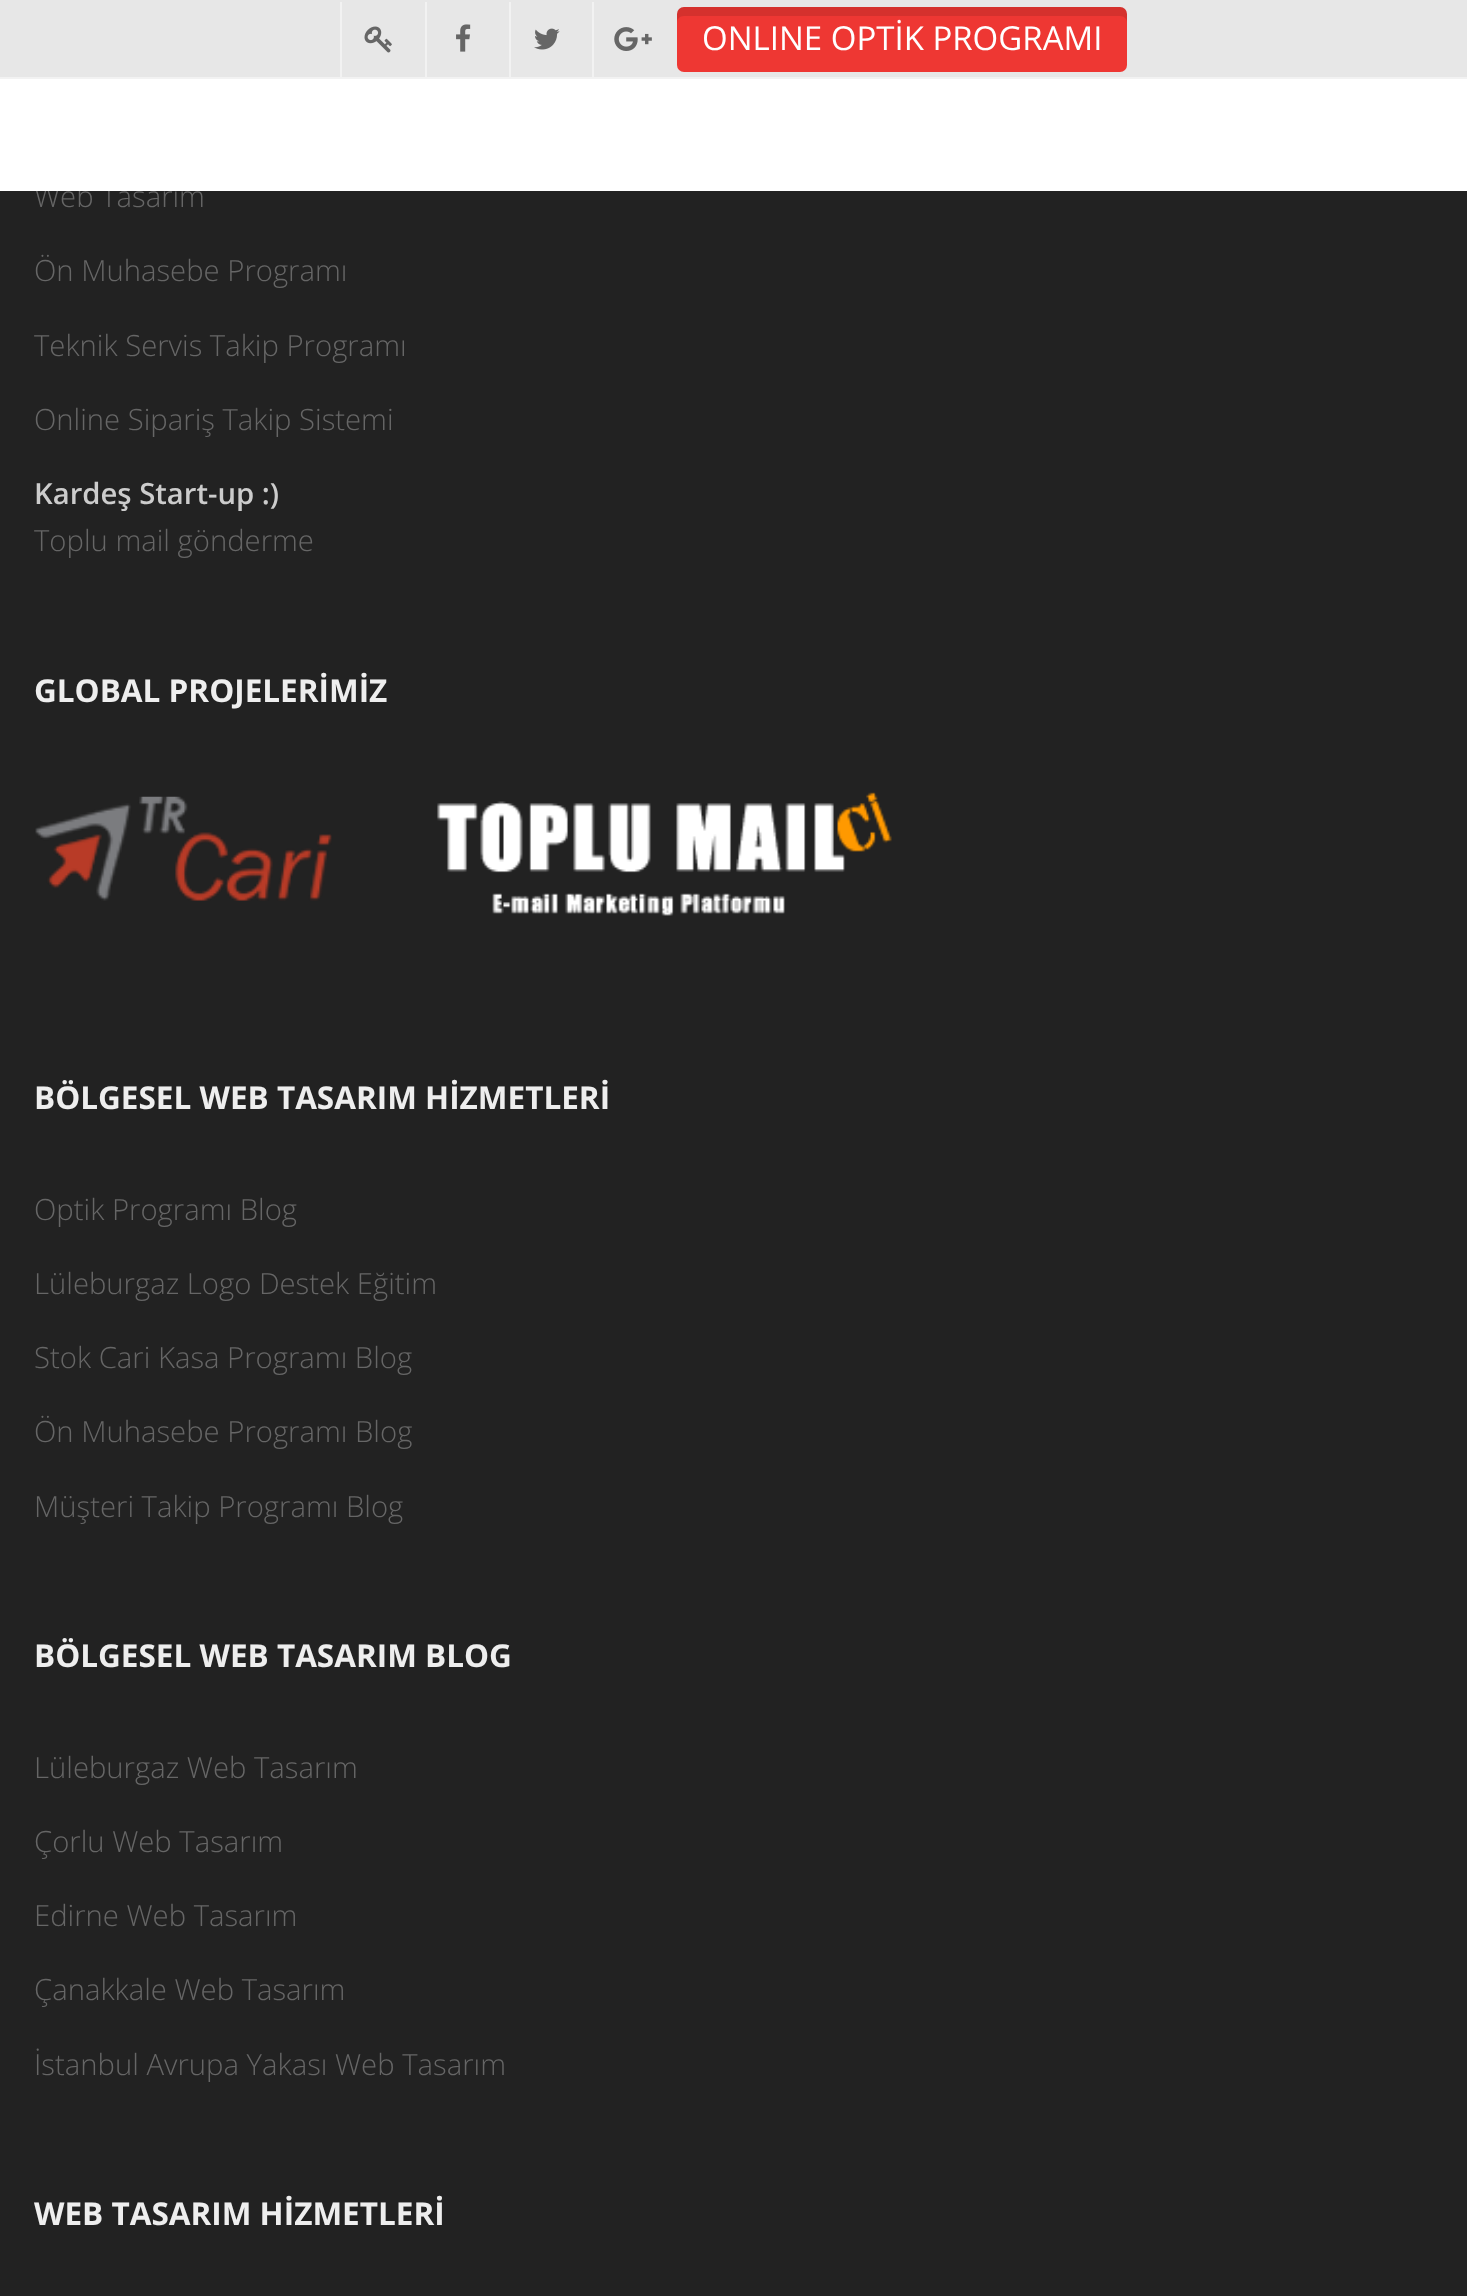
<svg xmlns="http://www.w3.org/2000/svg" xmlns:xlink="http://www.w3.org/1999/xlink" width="1467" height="2296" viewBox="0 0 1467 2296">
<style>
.cls-1{font:33px Open Sans;fill:#ffffff}
.cls-2{font:300 29.25px Open Sans;fill:#666666}
.cls-3{font:600 29.25px Open Sans;fill:#cccccc}
.cls-4{font:bold 31.5px Open Sans;fill:#eeeeee}
</style>
<rect width="100%" height="100%" fill="#222222"/>
<rect fill="#e7e7e7" x="0" y="0" width="1467" height="77"/>
<rect fill="#f2f2f2" x="0" y="77" width="1467" height="2"/>
<rect fill="#f2f2f2" x="340" y="2" width="2" height="75"/>
<image xlink:href="image0.png" x="364" y="26" width="28" height="27"/>
<rect fill="#f2f2f2" x="425" y="2" width="2" height="75"/>
<image xlink:href="image1.png" x="456" y="24" width="15" height="28"/>
<rect fill="#f2f2f2" x="509" y="2" width="2" height="75"/>
<image xlink:href="image2.png" x="534" y="28" width="26" height="22"/>
<rect fill="#f2f2f2" x="592" y="2" width="2" height="75"/>
<image xlink:href="image3.png" x="614" y="27" width="38" height="24"/>
<rect fill="#ee3733" x="677" y="7" width="450" height="65" rx="7"/>
<path fill="#000000" fill-opacity="0.1" d="M684 16H1120C1124 16 1127 19 1127 22V14C1127 10 1124 7 1120 7H684C680 7 677 10 677 14V22C677 19 680 16 684 16Z"/>
<image xlink:href="image4.png" x="35" y="796" width="297" height="105"/>
<image xlink:href="image5.png" x="437" y="792" width="455" height="124"/>
<text class="cls-1" x="702" y="50">ONLINE OPTİK PROGRAMI</text>
<text class="cls-2" x="34" y="207">Web Tasarım</text>
<rect fill="#ffffff" x="0" y="79" width="1467" height="112"/>
<text class="cls-2" x="34" y="281">Ön Muhasebe Programı</text>
<text class="cls-2" x="34" y="356">Teknik Servis Takip Programı</text>
<text class="cls-2" x="34" y="430">Online Sipariş Takip Sistemi</text>
<text class="cls-3" x="34" y="504">Kardeş Start-up :)</text>
<text class="cls-2" x="34" y="551">Toplu mail gönderme</text>
<text class="cls-4" x="34" y="702">GLOBAL PROJELERİMİZ</text>
<text class="cls-4" x="34" y="1109">BÖLGESEL WEB TASARIM HİZMETLERİ</text>
<text class="cls-2" x="34" y="1220">Optik Programı Blog</text>
<text class="cls-2" x="34" y="1294">Lüleburgaz Logo Destek Eğitim</text>
<text class="cls-2" x="34" y="1368">Stok Cari Kasa Programı Blog</text>
<text class="cls-2" x="34" y="1442">Ön Muhasebe Programı Blog</text>
<text class="cls-2" x="34" y="1517">Müşteri Takip Programı Blog</text>
<text class="cls-4" x="34" y="1667">BÖLGESEL WEB TASARIM BLOG</text>
<text class="cls-2" x="34" y="1778">Lüleburgaz Web Tasarım</text>
<text class="cls-2" x="34" y="1852">Çorlu Web Tasarım</text>
<text class="cls-2" x="34" y="1926">Edirne Web Tasarım</text>
<text class="cls-2" x="34" y="2000">Çanakkale Web Tasarım</text>
<text class="cls-2" x="34" y="2075">İstanbul Avrupa Yakası Web Tasarım</text>
<text class="cls-4" x="34" y="2225">WEB TASARIM HİZMETLERİ</text>
</svg>
